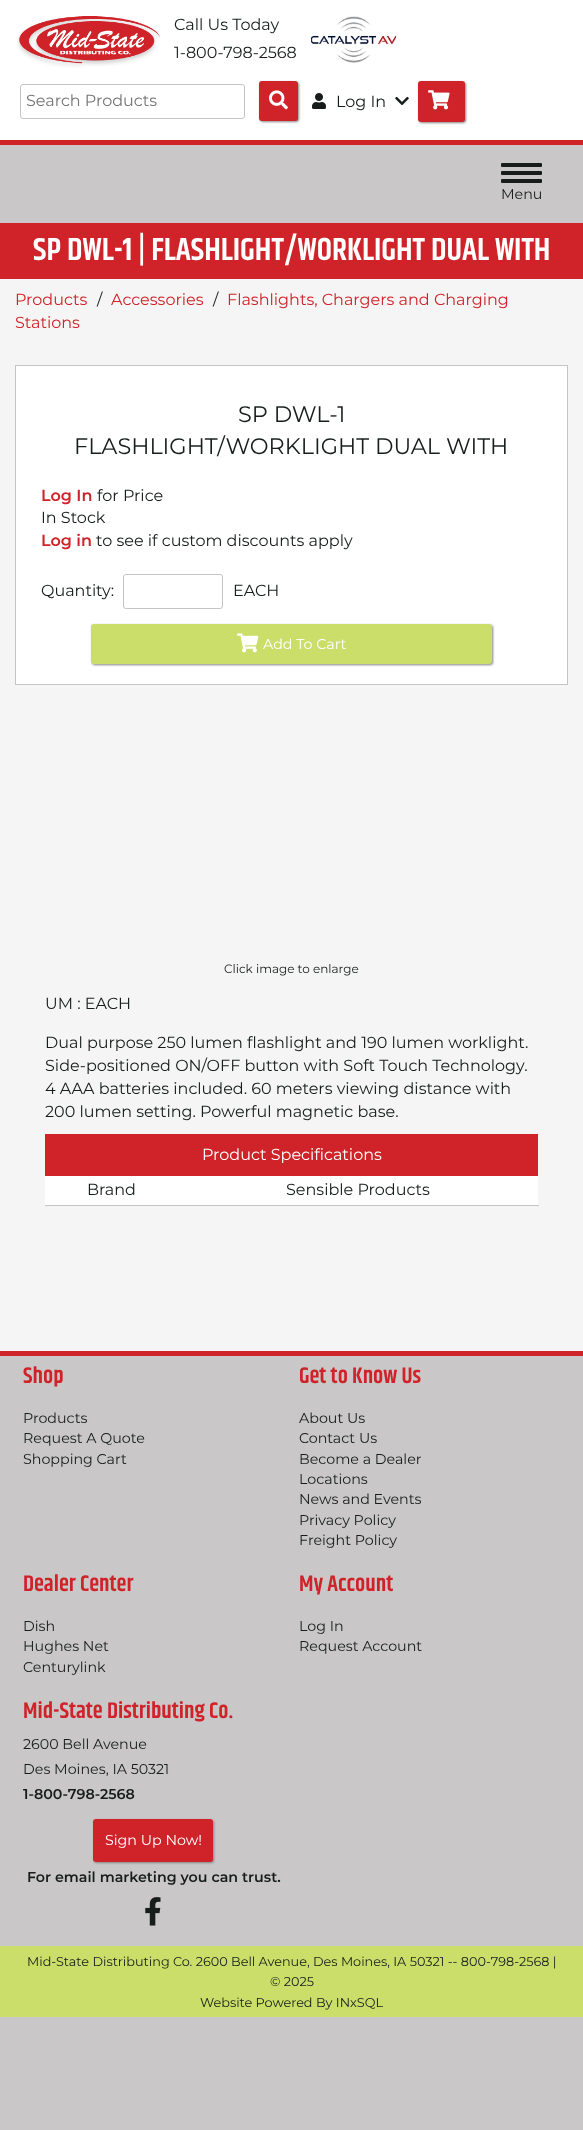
<svg xmlns="http://www.w3.org/2000/svg" xmlns:xlink="http://www.w3.org/1999/xlink" width="583" height="2130" viewBox="0 0 583 2130">
<style>
.cls-1{font:16px Montserrat;fill:#171d1b}
.cls-2{font:16px Montserrat;fill:#757575}
.cls-3{font:14.25px Montserrat;fill:#171d1b}
.cls-4{font:600 32px Khand;fill:#ffffff}
.cls-5{font:16px Montserrat;fill:#cf2329}
.cls-6{font:22.4px Montserrat;fill:#171d1b}
.cls-7{font:600 16px Montserrat;fill:#cf2329}
.cls-8{font:14.25px Montserrat;fill:#ffffff}
.cls-9{font:12px Montserrat;fill:#171d1b}
.cls-10{font:16px Montserrat;fill:#ffffff}
.cls-11{font:600 22.75px Khand;fill:#cf2329}
.cls-12{font:600 14.25px Montserrat;fill:#171d1b}
.cls-13{font:12.8px Montserrat;fill:#171d1b}
</style>
<rect width="100%" height="100%" fill="#f5f5f5"/>
<rect fill="#ffffff" x="0" y="0" width="583" height="140"/>
<rect fill="#cf2329" x="0" y="140" width="583" height="5"/>
<image xlink:href="image0.png" x="17" y="16" width="143" height="52"/>
<image xlink:href="image1.png" x="311" y="16" width="85" height="47"/>
<rect fill="none" stroke="#c4c4c4" x="20.5" y="84.5" width="224" height="34" rx="2.5"/>
<rect fill="#848484" filter="blur(1px)" x="260" y="82" width="39" height="40" rx="3"/>
<rect fill="#cf2329" x="259" y="81" width="39" height="40" rx="3"/>
<image xlink:href="image2.png" x="269" y="90" width="19" height="20"/>
<image xlink:href="image3.png" x="312" y="93" width="14" height="16"/>
<image xlink:href="image4.png" x="395" y="96" width="14" height="10"/>
<rect fill="#848484" filter="blur(1px)" x="419" y="82" width="47" height="41" rx="3"/>
<rect fill="#cf2329" x="418" y="81" width="47" height="41" rx="3"/>
<image xlink:href="image5.png" x="428" y="90" width="22" height="20"/>
<rect fill="#c9c7c7" x="0" y="145" width="583" height="78"/>
<rect fill="#171d1b" x="501" y="163" width="41" height="4" rx="1"/>
<rect fill="#171d1b" x="501" y="171" width="41" height="4" rx="1"/>
<rect fill="#171d1b" x="501" y="179" width="41" height="4" rx="1"/>
<rect fill="#cf2329" x="0" y="223" width="583" height="56"/>
<rect fill="#ffffff" stroke="#c4c4c4" x="15.5" y="365.5" width="552" height="319"/>
<rect fill="none" stroke="#c4c4c4" x="123.5" y="574.5" width="99" height="34" rx="2.5"/>
<rect fill="#848484" filter="blur(1px)" x="92" y="625" width="401" height="40" rx="3"/>
<rect fill="#cbde69" x="91" y="624" width="401" height="40" rx="3"/>
<image xlink:href="image6.png" x="237" y="633" width="22" height="20"/>
<rect fill="#ffffff" x="45" y="1176" width="493" height="29"/>
<rect fill="#cf2329" x="45" y="1134" width="493" height="42"/>
<rect fill="#c4c4c4" x="45" y="1205" width="494" height="1"/>
<rect fill="#c9c7c7" x="0" y="1356" width="583" height="774"/>
<rect fill="#cf2329" x="0" y="1351" width="583" height="5"/>
<rect fill="#848484" filter="blur(1px)" x="94" y="1820" width="120" height="43" rx="3"/>
<rect fill="#cf2329" x="93" y="1819" width="120" height="43" rx="3"/>
<image xlink:href="image7.png" x="145" y="1897" width="16" height="29"/>
<rect fill="#cbde69" x="0" y="1946" width="583" height="71"/>
<text class="cls-1"><tspan x="174" y="30">Call Us Today</tspan><tspan x="174" y="58">1-800-798-2568</tspan></text>
<text class="cls-2" x="26" y="106">Search Products</text>
<text class="cls-1" x="336" y="107">Log In</text>
<text class="cls-3" x="501" y="199">Menu</text>
<text class="cls-4" x="33" y="260">SP DWL-1 | FLASHLIGHT/WORKLIGHT DUAL WITH</text>
<text class="cls-5" x="15" y="305">Products</text>
<text class="cls-1" x="97" y="305">/</text>
<text class="cls-5" x="111" y="305">Accessories</text>
<text class="cls-1" x="213" y="305">/</text>
<text class="cls-5" x="227" y="305">Flashlights, Chargers and Charging</text>
<text class="cls-5" x="15" y="328">Stations</text>
<text class="cls-6" x="238" y="422">SP DWL-1</text>
<text class="cls-6" x="74" y="454">FLASHLIGHT/WORKLIGHT DUAL WITH</text>
<text class="cls-7" x="41" y="501">Log In</text>
<text class="cls-1" x="97" y="501">for Price</text>
<text class="cls-1" x="41" y="523">In Stock</text>
<text class="cls-7" x="41" y="546">Log in</text>
<text class="cls-1" x="96" y="546">to see if custom discounts apply</text>
<text class="cls-1" x="41" y="596">Quantity:</text>
<text class="cls-1" x="233" y="596">EACH</text>
<text class="cls-8" x="263" y="649">Add To Cart</text>
<text class="cls-9" x="224" y="973">Click image to enlarge</text>
<text class="cls-1" x="45" y="1009">UM : EACH</text>
<text class="cls-1"><tspan x="45" y="1048">Dual purpose 250 lumen flashlight and 190 lumen worklight.</tspan><tspan x="45" y="1071">Side-positioned ON/OFF button with Soft Touch Technology.</tspan><tspan x="45" y="1094">4 AAA batteries included. 60 meters viewing distance with</tspan><tspan x="45" y="1117">200 lumen setting. Powerful magnetic base.</tspan></text>
<text class="cls-10" x="202" y="1160">Product Specifications</text>
<text class="cls-1" x="87" y="1195">Brand</text>
<text class="cls-1" x="286" y="1195">Sensible Products</text>
<text class="cls-11" x="23" y="1383">Shop</text>
<text class="cls-3"><tspan x="23" y="1423">Products</tspan><tspan x="23" y="1443">Request A Quote</tspan><tspan x="23" y="1464">Shopping Cart</tspan></text>
<text class="cls-11" x="299" y="1383">Get to Know Us</text>
<text class="cls-3"><tspan x="299" y="1423">About Us</tspan><tspan x="299" y="1443">Contact Us</tspan><tspan x="299" y="1464">Become a Dealer</tspan><tspan x="299" y="1484">Locations</tspan><tspan x="299" y="1504">News and Events</tspan><tspan x="299" y="1525">Privacy Policy</tspan><tspan x="299" y="1545">Freight Policy</tspan></text>
<text class="cls-11" x="23" y="1591">Dealer Center</text>
<text class="cls-3"><tspan x="23" y="1631">Dish</tspan><tspan x="23" y="1651">Hughes Net</tspan><tspan x="23" y="1672">Centurylink</tspan></text>
<text class="cls-11" x="299" y="1591">My Account</text>
<text class="cls-3"><tspan x="299" y="1631">Log In</tspan><tspan x="299" y="1651">Request Account</tspan></text>
<text class="cls-11" x="23" y="1718">Mid-State Distributing Co.</text>
<text class="cls-3"><tspan x="23" y="1749">2600 Bell Avenue</tspan><tspan x="23" y="1774">Des Moines, IA 50321</tspan></text>
<text class="cls-12" x="23" y="1799">1-800-798-2568</text>
<text class="cls-8" x="105" y="1845">Sign Up Now!</text>
<text class="cls-12" x="27" y="1882">For email marketing you can trust.</text>
<text class="cls-13" x="27" y="1966">Mid-State Distributing Co. 2600 Bell Avenue, Des Moines, IA 50321 -- 800-798-2568 |</text>
<text class="cls-13" x="270" y="1986">© 2025</text>
<text class="cls-13" x="200" y="2007">Website Powered By INxSQL</text>
</svg>
